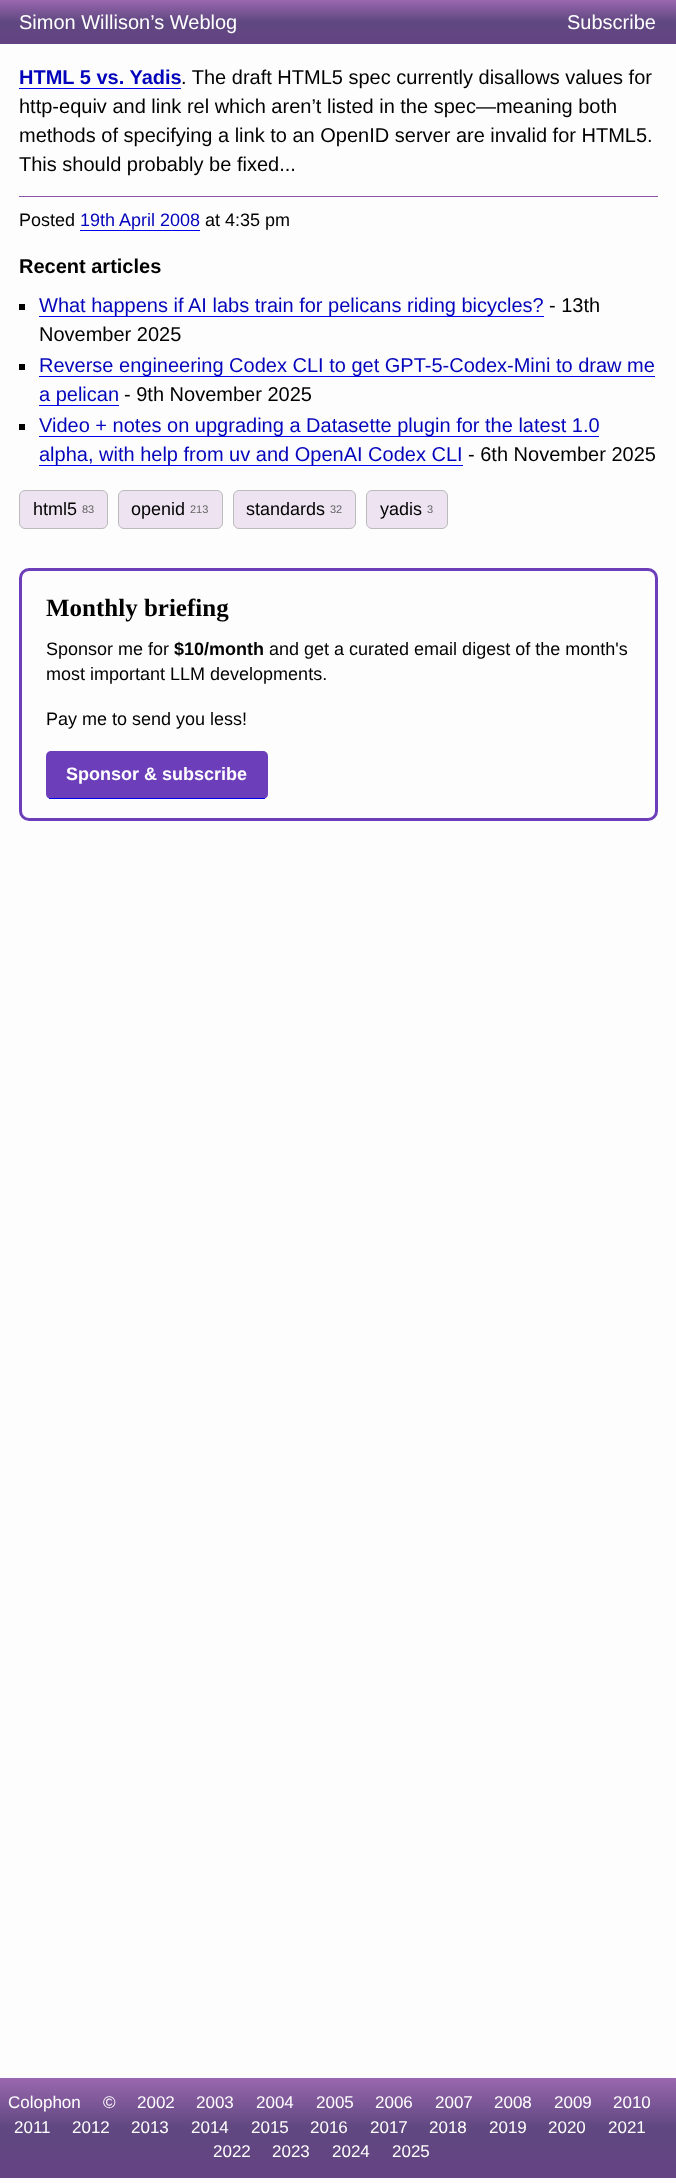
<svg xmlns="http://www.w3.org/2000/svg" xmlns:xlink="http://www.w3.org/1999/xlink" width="676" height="2183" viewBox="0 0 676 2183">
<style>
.cls-1{font:20px Liberation Sans;fill:#ffffff}
.cls-2{font:bold 20px Liberation Sans;fill:#0303bb}
.cls-3{font:20px Liberation Sans;fill:#000000}
.cls-4{font:18px Liberation Sans;fill:#000000}
.cls-5{font:18px Liberation Sans;fill:#0303bb}
.cls-6{font:bold 20px Liberation Sans;fill:#000000}
.cls-7{font:20px Liberation Sans;fill:#0303bb}
.cls-8{font:11px Liberation Sans;fill:#666666}
.cls-9{font:bold 25px Liberation Serif;fill:#000000}
.cls-10{font:bold 18px Liberation Sans;fill:#000000}
.cls-11{font:bold 18px Liberation Sans;fill:#ffffff}
.cls-12{font:17px Liberation Sans;fill:#ffffff}
</style>
<defs>
<linearGradient id="g1" gradientUnits="userSpaceOnUse" x1="338" y1="0" x2="338" y2="44"><stop offset="0" stop-color="#9a67af"/><stop offset="0.49" stop-color="#604881"/><stop offset="1" stop-color="#644382"/></linearGradient>
<linearGradient id="g2" gradientUnits="userSpaceOnUse" x1="338" y1="2078" x2="338" y2="2178"><stop offset="0" stop-color="#9a67af"/><stop offset="0.49" stop-color="#604881"/><stop offset="1" stop-color="#644382"/></linearGradient>
</defs>
<rect width="100%" height="100%" fill="#fdfdfd"/>
<rect fill="url(#g1)" x="0" y="0" width="676" height="44"/>
<rect fill="#0000ee" x="19" y="88" width="162" height="1"/>
<rect fill="#8a55a8" x="19" y="196" width="639" height="1"/>
<rect fill="#0000ee" x="80" y="230" width="120" height="1"/>
<rect fill="#000000" x="19" y="304" width="6" height="6"/>
<rect fill="#0000ee" x="39" y="316" width="505" height="1"/>
<rect fill="#000000" x="19" y="364" width="6" height="6"/>
<rect fill="#0000ee" x="39" y="376" width="616" height="1"/>
<rect fill="#0000ee" x="39" y="405" width="80" height="1"/>
<rect fill="#000000" x="19" y="424" width="6" height="6"/>
<rect fill="#0000ee" x="39" y="436" width="560" height="1"/>
<rect fill="#0000ee" x="39" y="465" width="424" height="1"/>
<rect fill="#ede3f1" stroke="#bbbbbb" x="19.5" y="490.5" width="88" height="38" rx="5.5"/>
<rect fill="#ede3f1" stroke="#bbbbbb" x="118.5" y="490.5" width="104" height="38" rx="5.5"/>
<rect fill="#ede3f1" stroke="#bbbbbb" x="233.5" y="490.5" width="122" height="38" rx="5.5"/>
<rect fill="#ede3f1" stroke="#bbbbbb" x="366.5" y="490.5" width="81" height="38" rx="5.5"/>
<rect fill="none" stroke="#6c3eb9" stroke-width="3" x="20.5" y="569.5" width="636" height="250" rx="8.5"/>
<rect fill="#6c3eb9" x="46" y="751" width="222" height="48" rx="5"/>
<rect fill="#0000ee" x="49" y="798" width="216" height="1"/>
<rect fill="url(#g2)" x="0" y="2078" width="676" height="100"/>
<text class="cls-1" x="19" y="29">Simon Willison’s Weblog</text>
<text class="cls-1" x="567" y="29">Subscribe</text>
<text class="cls-2" x="19" y="84">HTML 5 vs. Yadis</text>
<text class="cls-3" x="181" y="84">. The draft HTML5 spec currently disallows values for</text>
<text class="cls-3"><tspan x="19" y="113">http-equiv and link rel which aren’t listed in the spec—meaning both</tspan><tspan x="19" y="142">methods of specifying a link to an OpenID server are invalid for HTML5.</tspan><tspan x="19" y="171">This should probably be fixed...</tspan></text>
<text class="cls-4" x="19" y="226">Posted</text>
<text class="cls-5" x="80" y="226">19th April 2008</text>
<text class="cls-4" x="205" y="226">at 4:35 pm</text>
<text class="cls-6" x="19" y="273">Recent articles</text>
<text class="cls-7" x="39" y="312">What happens if AI labs train for pelicans riding bicycles?</text>
<text class="cls-3" x="549" y="312">- 13th</text>
<text class="cls-3" x="39" y="341">November 2025</text>
<text class="cls-7"><tspan x="39" y="372">Reverse engineering Codex CLI to get GPT-5-Codex-Mini to draw me</tspan><tspan x="39" y="401">a pelican</tspan></text>
<text class="cls-3" x="124" y="401">- 9th November 2025</text>
<text class="cls-7"><tspan x="39" y="432">Video + notes on upgrading a Datasette plugin for the latest 1.0</tspan><tspan x="39" y="461">alpha, with help from uv and OpenAI Codex CLI</tspan></text>
<text class="cls-3" x="468" y="461">- 6th November 2025</text>
<text class="cls-4" x="33" y="515">html5</text>
<text class="cls-8" x="82" y="513">83</text>
<text class="cls-4" x="131" y="515">openid</text>
<text class="cls-8" x="190" y="513">213</text>
<text class="cls-4" x="246" y="515">standards</text>
<text class="cls-8" x="330" y="513">32</text>
<text class="cls-4" x="380" y="515">yadis</text>
<text class="cls-8" x="427" y="513">3</text>
<text class="cls-9" x="46" y="616">Monthly briefing</text>
<text class="cls-4" x="46" y="655">Sponsor me for</text>
<text class="cls-10" x="174" y="655">$10/month</text>
<text class="cls-4" x="269" y="655">and get a curated email digest of the month's</text>
<text class="cls-4" x="46" y="680">most important LLM developments.</text>
<text class="cls-4" x="46" y="725">Pay me to send you less!</text>
<text class="cls-11" x="66" y="780">Sponsor &amp; subscribe</text>
<text class="cls-12" x="8" y="2108">Colophon</text>
<text class="cls-12" x="103" y="2108">©</text>
<text class="cls-12" x="137" y="2108">2002</text>
<text class="cls-12" x="196" y="2108">2003</text>
<text class="cls-12" x="256" y="2108">2004</text>
<text class="cls-12" x="316" y="2108">2005</text>
<text class="cls-12" x="375" y="2108">2006</text>
<text class="cls-12" x="435" y="2108">2007</text>
<text class="cls-12" x="494" y="2108">2008</text>
<text class="cls-12" x="554" y="2108">2009</text>
<text class="cls-12" x="613" y="2108">2010</text>
<text class="cls-12" x="14" y="2133">2011</text>
<text class="cls-12" x="72" y="2133">2012</text>
<text class="cls-12" x="131" y="2133">2013</text>
<text class="cls-12" x="191" y="2133">2014</text>
<text class="cls-12" x="251" y="2133">2015</text>
<text class="cls-12" x="310" y="2133">2016</text>
<text class="cls-12" x="370" y="2133">2017</text>
<text class="cls-12" x="429" y="2133">2018</text>
<text class="cls-12" x="489" y="2133">2019</text>
<text class="cls-12" x="548" y="2133">2020</text>
<text class="cls-12" x="608" y="2133">2021</text>
<text class="cls-12" x="213" y="2157">2022</text>
<text class="cls-12" x="272" y="2157">2023</text>
<text class="cls-12" x="332" y="2157">2024</text>
<text class="cls-12" x="392" y="2157">2025</text>
</svg>
